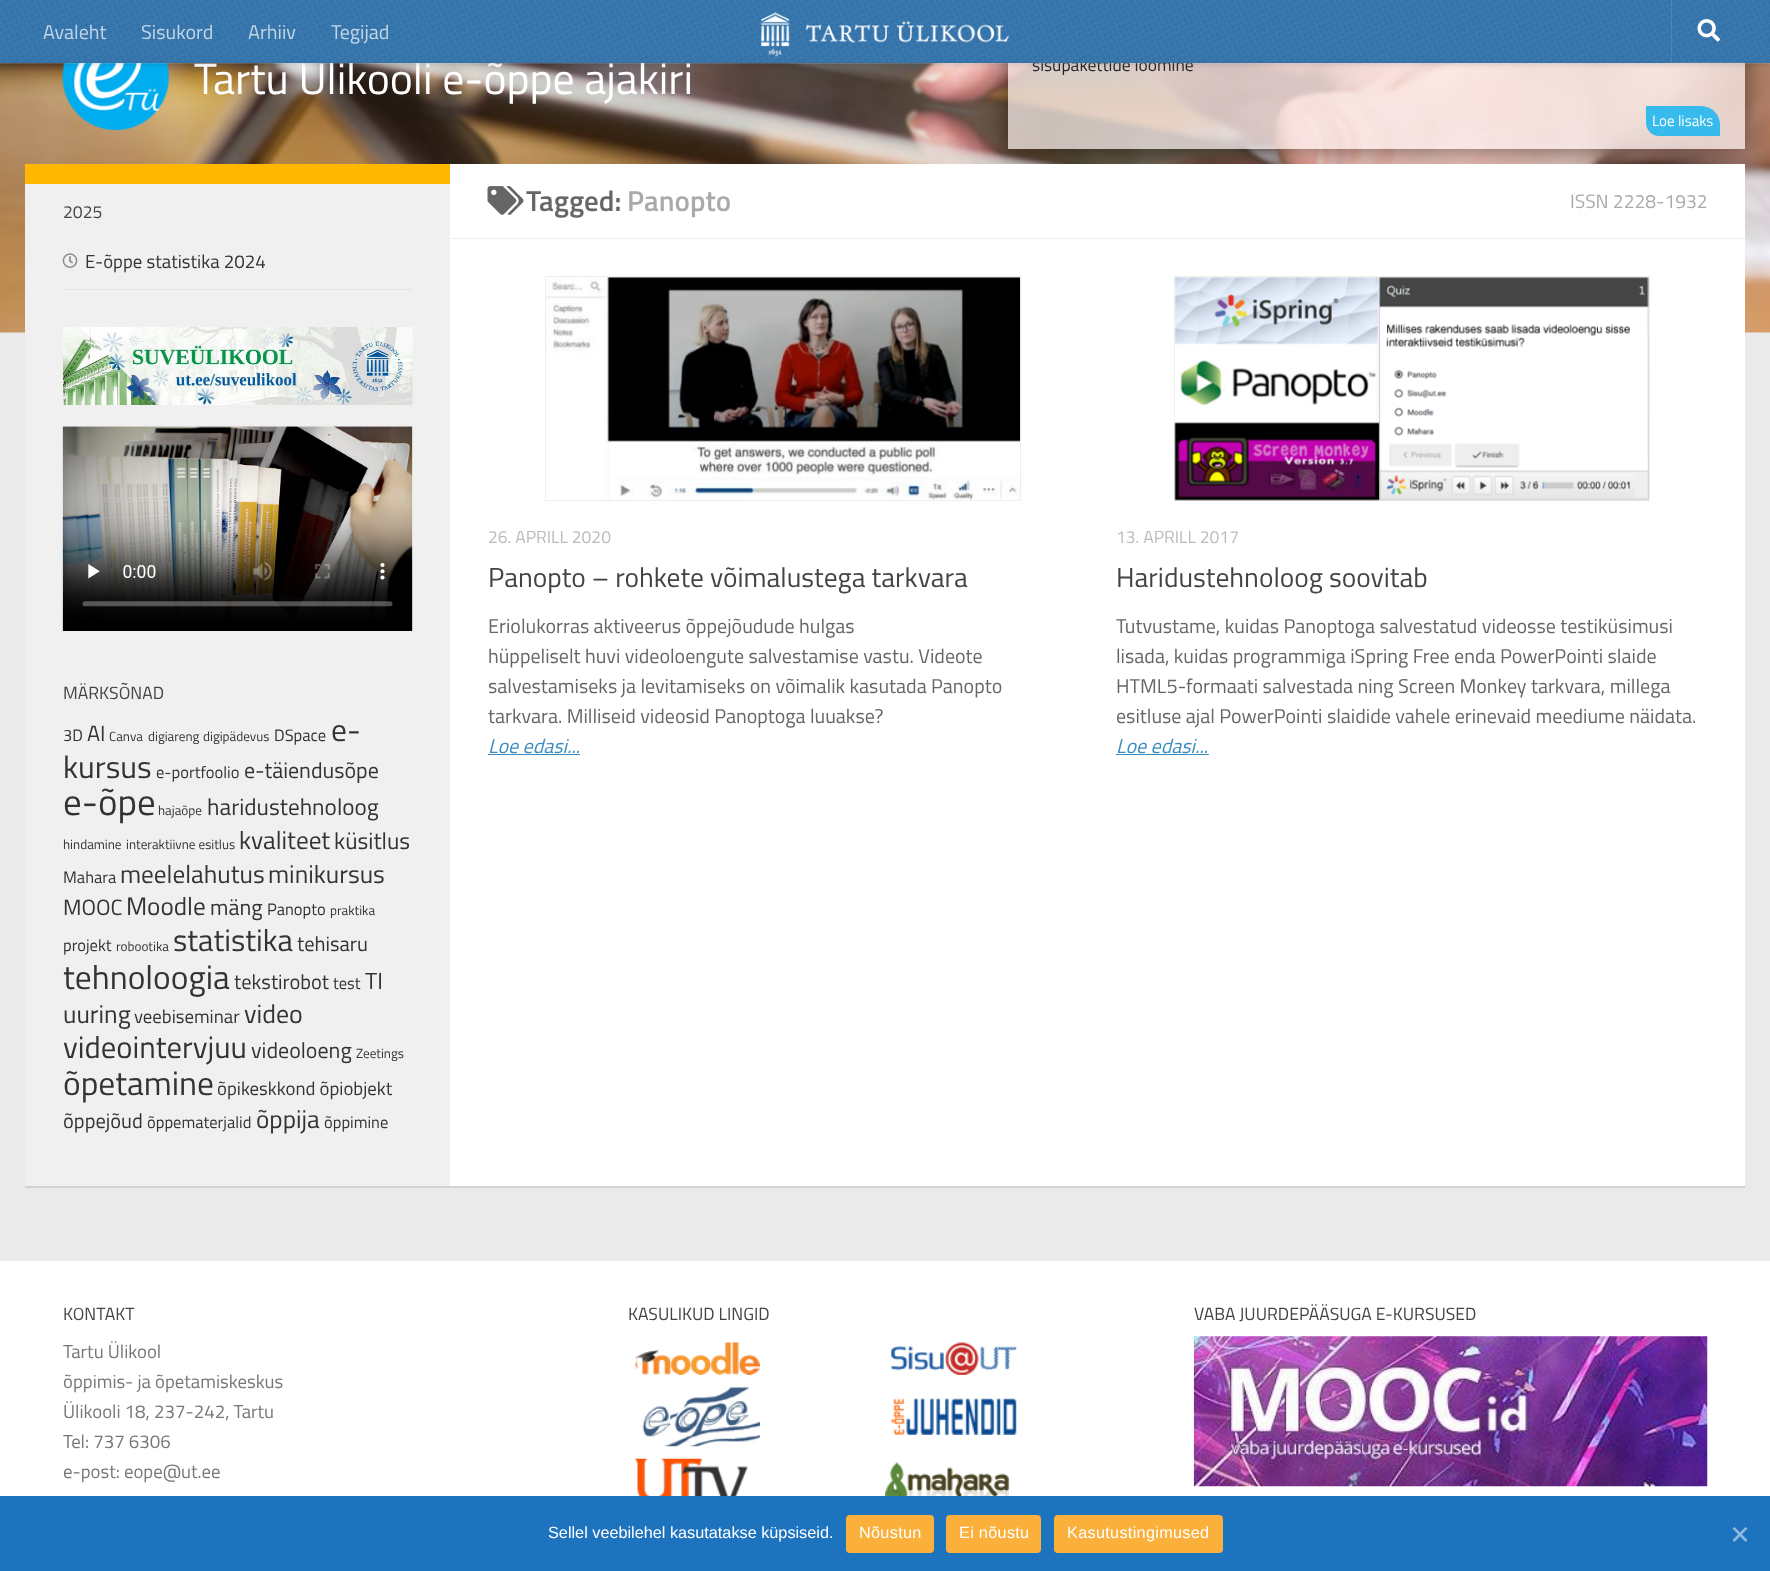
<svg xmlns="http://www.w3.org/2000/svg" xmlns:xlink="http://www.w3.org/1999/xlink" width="1770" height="1571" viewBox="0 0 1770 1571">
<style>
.cls-1{font:43.75px Titillium Web;fill:#ffffff}
.cls-2{font:17.5px Titillium Web;fill:#282727}
.cls-3{font:20px Titillium Web;fill:#c3d6e6}
.cls-4{font:15px Titillium Web;fill:#ffffff}
.cls-5{font:17.6px Titillium Web;fill:#444444}
.cls-6{font:18.75px Titillium Web;fill:#333333}
.cls-7{font:16.5px Titillium Web;fill:#333333}
.cls-8{font:22px Titillium Web;fill:#333333}
.cls-9{font:13.25px Titillium Web;fill:#333333}
.cls-10{font:31.5px Titillium Web;fill:#333333}
.cls-11{font:37px Titillium Web;fill:#333333}
.cls-12{font:23.25px Titillium Web;fill:#333333}
.cls-13{font:25.25px Titillium Web;fill:#333333}
.cls-14{font:30.75px Titillium Web;fill:#333333}
.cls-15{font:20.5px Titillium Web;fill:#333333}
.cls-16{font:33.5px Titillium Web;fill:#333333}
.cls-17{font:26px Titillium Web;fill:#333333}
.cls-18{font:600 29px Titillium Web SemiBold;fill:#666666}
.cls-19{font:600 29px Titillium Web SemiBold;fill:#aaaaaa}
.cls-20{font:19.25px Titillium Web;fill:#aaaaaa}
.cls-21{font:17.5px Titillium Web;fill:#bbbbbb}
.cls-22{font:27.5px Titillium Web;fill:#444444}
.cls-23{font:20px Titillium Web;fill:#666666}
.cls-24{font:italic 20px Titillium Web;fill:#3b8dbd}
.cls-25{font:18.75px Titillium Web;fill:#777777}
.cls-26{font:16.25px Liberation Sans;fill:#ffffff}
.cls-27{font:16.25px Liberation Sans;letter-spacing:0.3px;fill:#ffffff}
</style>
<defs>
<clipPath id="clip1"><path d="M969 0H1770V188H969ZM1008 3H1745V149H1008Z" clip-rule="evenodd"/></clipPath>
</defs>
<rect width="100%" height="100%" fill="#eaeaea"/>
<rect fill="#000000" fill-opacity="0.1" filter="blur(0.5px)" x="25" y="165" width="1720" height="1023"/>
<image xlink:href="image4.png" x="0" y="63" width="1770" height="270"/>
<image xlink:href="image3.png" x="62" y="63" width="107" height="67"/>
<g clip-path="url(#clip1)">
<rect fill="#000000" fill-opacity="0.5" filter="blur(12.5px)" x="1008" y="3" width="737" height="146"/>
</g>
<rect fill="#fff5f5" fill-opacity="0.7" x="1008" y="63" width="737" height="86"/>
<path fill="#37bbec" d="M1646 106H1701C1711.5 106 1720 114.5 1720 125V136H1659C1652 136 1646 130 1646 123Z"/>
<rect fill="#ffffff" x="450" y="164" width="1295" height="1022"/>
<rect fill="#f0f0f0" x="25" y="184" width="425" height="1002"/>
<rect fill="#ffb701" x="25" y="164" width="425" height="20"/>
<rect fill="#e4e4e4" x="63" y="289" width="350" height="1"/>
<image xlink:href="image5.png" x="62" y="253" width="16" height="15"/>
<image xlink:href="image6.png" x="63" y="327" width="350" height="78"/>
<image xlink:href="image7.png" x="62" y="426" width="351" height="205"/>
<rect fill="#eeeeee" x="450" y="238" width="1295" height="1"/>
<image xlink:href="image8.png" x="487" y="186" width="37" height="29"/>
<rect fill="none" stroke="#eeeeee" x="545.5" y="276.5" width="475" height="224"/>
<image xlink:href="image9.png" x="546" y="277" width="475" height="223"/>
<rect fill="#3b8dbd" x="488" y="754" width="92" height="1"/>
<rect fill="none" stroke="#eeeeee" x="1174.5" y="276.5" width="475" height="224"/>
<image xlink:href="image10.png" x="1174" y="277" width="475" height="224"/>
<rect fill="#3b8dbd" x="1116" y="754" width="93" height="1"/>
<rect fill="#ffffff" x="0" y="1261" width="1770" height="235"/>
<image xlink:href="image11.png" x="635" y="1342" width="125" height="33"/>
<image xlink:href="image12.png" x="891" y="1342" width="126" height="33"/>
<image xlink:href="image13.png" x="642" y="1387" width="118" height="60"/>
<image xlink:href="image14.png" x="891" y="1398" width="126" height="37"/>
<image xlink:href="image15.png" x="635" y="1458" width="113" height="38"/>
<image xlink:href="image16.png" x="885" y="1462" width="125" height="34"/>
<image xlink:href="image17.png" x="1193" y="1336" width="515" height="151"/>
<rect fill="#1e73be" x="0" y="1496" width="1770" height="75"/>
<rect fill="#fbb03b" x="846" y="1515" width="88" height="38" rx="4"/>
<rect fill="#fbb03b" x="946" y="1515" width="95" height="38" rx="4"/>
<rect fill="#fbb03b" x="1054" y="1515" width="169" height="38" rx="4"/>
<path fill="#8fb9df" d="M1745.5 1527L1747.5 1528.5L1734.5 1542L1732.5 1540Z"/>
<path fill="#8fb9df" d="M1732.5 1528.5L1734.5 1527L1747.5 1540L1745.5 1542Z"/>
<text class="cls-1" x="194" y="94">Tartu Ülikooli e-õppe ajakiri</text>
<text class="cls-2" x="1032" y="71">sisupakettide loomine</text>
<rect fill="#ffffff" fill-opacity="0.15" x="0" y="63" width="1770" height="1"/>
<rect fill="#000000" fill-opacity="0.2" filter="blur(3px)" x="0" y="0" width="1770" height="63"/>
<rect fill="#3071a9" x="0" y="0" width="1770" height="63"/>
<image xlink:href="image0.png" x="0" y="0" width="1770" height="63"/>
<path fill="#ffffff" fill-opacity="0.1" d="M1671 0V63H1744V62H1672V0Z"/>
<image xlink:href="image2.png" x="1697" y="19" width="23" height="23"/>
<text class="cls-3" x="331" y="39">Tegijad</text>
<text class="cls-3" x="248" y="39">Arhiiv</text>
<text class="cls-3" x="141" y="39">Sisukord</text>
<text class="cls-3" x="43" y="39">Avaleht</text>
<image xlink:href="image1.png" x="761" y="12" width="248" height="45"/>
<text class="cls-4" x="1652" y="126">Loe lisaks</text>
<text class="cls-5" x="63" y="218">2025</text>
<text class="cls-6" x="85" y="268">E-õppe statistika 2024</text>
<text class="cls-5" x="63" y="699">MÄRKSÕNAD</text>
<text class="cls-7" x="63" y="741">3D</text>
<text class="cls-8" x="87" y="741">AI</text>
<text class="cls-9" x="109" y="741">Canva</text>
<text class="cls-9" x="148" y="741">digiareng</text>
<text class="cls-9" x="203" y="741">digipädevus</text>
<text class="cls-7" x="274" y="741">DSpace</text>
<text class="cls-10" x="331" y="741">e-</text>
<text class="cls-10" x="63" y="778">kursus</text>
<text class="cls-7" x="156" y="778">e-portfoolio</text>
<text class="cls-8" x="244" y="778">e-täiendusõpe</text>
<text class="cls-11" x="63" y="815">e-õpe</text>
<text class="cls-9" x="158" y="815">hajaõpe</text>
<text class="cls-12" x="207" y="815">haridustehnoloog</text>
<text class="cls-9" x="63" y="849">hindamine</text>
<text class="cls-9" x="126" y="849">interaktiivne esitlus</text>
<text class="cls-13" x="239" y="849">kvaliteet</text>
<text class="cls-12" x="334" y="849">küsitlus</text>
<text class="cls-7" x="63" y="883">Mahara</text>
<text class="cls-13" x="120" y="883">meelelahutus</text>
<text class="cls-13" x="268" y="883">minikursus</text>
<text class="cls-8" x="63" y="915">MOOC</text>
<text class="cls-13" x="126" y="915">Moodle</text>
<text class="cls-8" x="210" y="915">mäng</text>
<text class="cls-7" x="267" y="915">Panopto</text>
<text class="cls-9" x="330" y="915">praktika</text>
<text class="cls-7" x="63" y="951">projekt</text>
<text class="cls-9" x="116" y="951">robootika</text>
<text class="cls-14" x="173" y="951">statistika</text>
<text class="cls-15" x="297" y="951">tehisaru</text>
<text class="cls-16" x="63" y="989">tehnoloogia</text>
<text class="cls-15" x="234" y="989">tekstirobot</text>
<text class="cls-7" x="333" y="989">test</text>
<text class="cls-12" x="365" y="989">TI</text>
<text class="cls-13" x="63" y="1023">uuring</text>
<text class="cls-6" x="134" y="1023">veebiseminar</text>
<text class="cls-17" x="244" y="1023">video</text>
<text class="cls-14" x="63" y="1058">videointervjuu</text>
<text class="cls-8" x="251" y="1058">videoloeng</text>
<text class="cls-9" x="356" y="1058">Zeetings</text>
<text class="cls-16" x="63" y="1095">õpetamine</text>
<text class="cls-6" x="217" y="1095">õpikeskkond õpiobjekt</text>
<text class="cls-15" x="63" y="1128">õppejõud</text>
<text class="cls-7" x="147" y="1128">õppematerjalid</text>
<text class="cls-13" x="256" y="1128">õppija</text>
<text class="cls-7" x="324" y="1128">õppimine</text>
<text class="cls-18" x="526" y="211">Tagged:</text>
<text class="cls-19" x="627" y="211">Panopto</text>
<text class="cls-20" x="1570" y="208">ISSN 2228-1932</text>
<text class="cls-21" x="488" y="543">26. APRILL 2020</text>
<text class="cls-22" x="488" y="587">Panopto – rohkete võimalustega tarkvara</text>
<text class="cls-23"><tspan x="488" y="633">Eriolukorras aktiveerus õppejõudude hulgas</tspan><tspan x="488" y="663">hüppeliselt huvi videoloengute salvestamise vastu. Videote</tspan><tspan x="488" y="693">salvestamiseks ja levitamiseks on võimalik kasutada Panopto</tspan><tspan x="488" y="723">tarkvara. Milliseid videosid Panoptoga luuakse?</tspan></text>
<text class="cls-24" x="488" y="753">Loe edasi...</text>
<text class="cls-21" x="1116" y="543">13. APRILL 2017</text>
<text class="cls-22" x="1116" y="587">Haridustehnoloog soovitab</text>
<text class="cls-23"><tspan x="1116" y="633">Tutvustame, kuidas Panoptoga salvestatud videosse testiküsimusi</tspan><tspan x="1116" y="663">lisada, kuidas programmiga iSpring Free enda PowerPointi slaide</tspan><tspan x="1116" y="693">HTML5-formaati salvestada ning Screen Monkey tarkvara, millega</tspan><tspan x="1116" y="723">esitluse ajal PowerPointi slaidide vahele erinevaid meediume näidata.</tspan></text>
<text class="cls-24" x="1116" y="753">Loe edasi...</text>
<text class="cls-5" x="63" y="1320">KONTAKT</text>
<text class="cls-25"><tspan x="63" y="1358">Tartu Ülikool</tspan><tspan x="63" y="1388">õppimis- ja õpetamiskeskus</tspan><tspan x="63" y="1418">Ülikooli 18, 237-242, Tartu</tspan><tspan x="63" y="1448">Tel: 737 6306</tspan><tspan x="63" y="1478">e-post: eope@ut.ee</tspan></text>
<text class="cls-5" x="628" y="1320">KASULIKUD LINGID</text>
<text class="cls-5" x="1194" y="1320">VABA JUURDEPÄÄSUGA E-KURSUSED</text>
<text class="cls-26" x="548" y="1538">Sellel veebilehel kasutatakse küpsiseid.</text>
<text class="cls-27" x="859" y="1538">Nõustun</text>
<text class="cls-27" x="959" y="1538">Ei nõustu</text>
<text class="cls-27" x="1067" y="1538">Kasutustingimused</text>
</svg>
